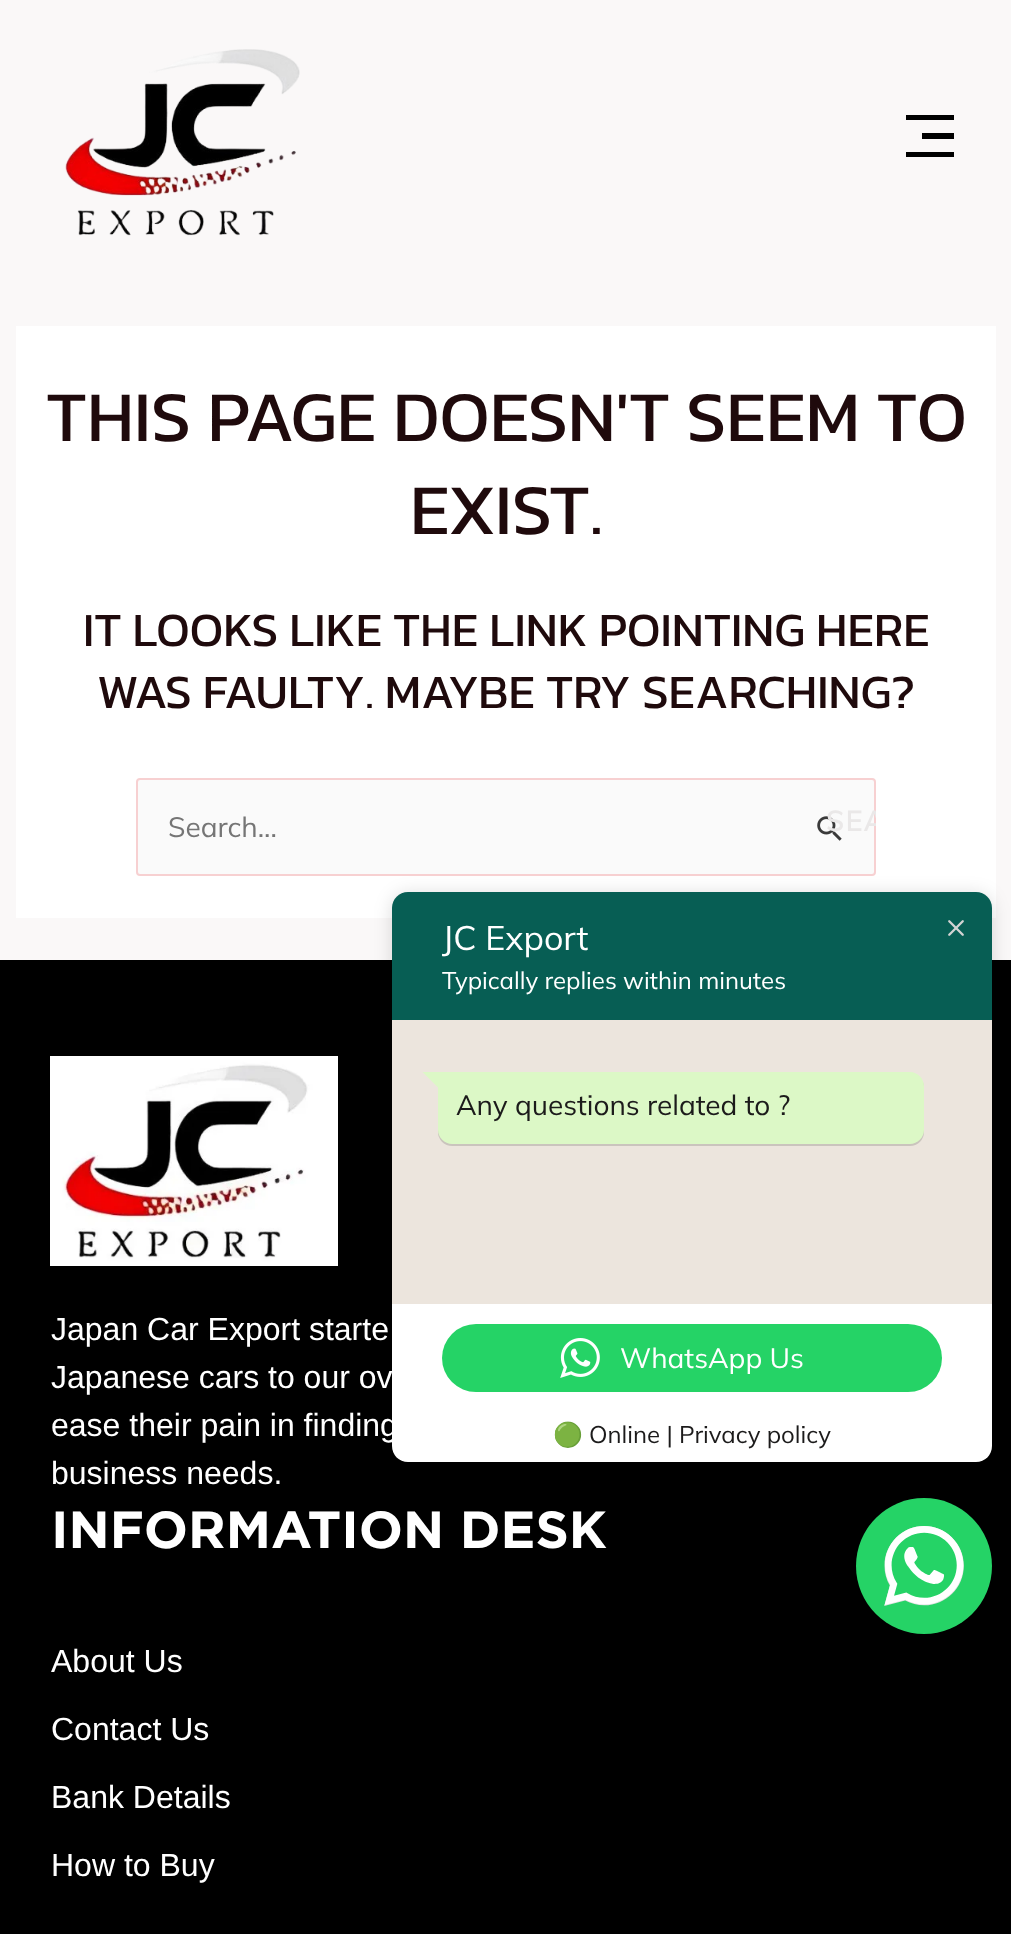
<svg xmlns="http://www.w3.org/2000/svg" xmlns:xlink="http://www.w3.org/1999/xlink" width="1011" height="1934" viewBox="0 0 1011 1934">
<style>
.cls-1{font:72px Kanit;fill:#1f0a0c}
.cls-2{font:48px Kanit;fill:#1f0a0c}
.cls-3{font:200 28px Mulish;fill:#757575}
.cls-4{font:bold 28px Mulish;letter-spacing:2px;fill:#eae8e8}
.cls-5{font:32px Liberation Sans;fill:#ffffff}
.cls-6{font:bold 52.1px Gotham;fill:#ffffff}
.cls-7{font:200 34px Mulish;fill:#ffffff}
.cls-8{font:200 24px Mulish;fill:#ffffff}
.cls-9{font:200 28px Mulish;fill:#1c1b1b}
.cls-10{font:200 28px Mulish;fill:#ffffff}
.cls-11{font:24px Noto Color Emoji;fill:#1c1b1b}
.cls-12{font:200 24px Mulish;fill:#1c1b1b}
</style>
<defs>
<clipPath id="clip1"><rect x="786" y="778" width="90" height="86" rx="4"/></clipPath>
</defs>
<rect width="100%" height="100%" fill="#faf8f8"/>
<image xlink:href="image0.png" x="65" y="49" width="235" height="187"/>
<path fill="#000000" d="M906 115H954V120H906ZM922 133H954V139H922ZM906 152H954V157H906Z"/>
<rect fill="#ffffff" x="16" y="326" width="980" height="592"/>
<rect fill="#fafafa" stroke="#f7d0d1" stroke-width="2" x="137" y="779" width="738" height="96" rx="3"/>
<image xlink:href="image1.png" x="817" y="816" width="25" height="25"/>
<rect fill="#000000" x="0" y="960" width="1011" height="974"/>
<image xlink:href="image2.png" x="50" y="1056" width="288" height="210"/>
<rect fill="#000000" fill-opacity="0.14" filter="blur(9px)" x="392" y="894" width="600" height="570" rx="16"/>
<path fill="#075e54" d="M408 892H976C985 892 992 899 992 908V1020H392V908C392 899 399 892 408 892Z"/>
<rect fill="#ece5dd" x="392" y="1020" width="600" height="284"/>
<rect fill="#000000" fill-opacity="0.14" filter="blur(0.5px)" x="438" y="1074" width="486" height="72" rx="14"/>
<path fill="#dcf8c6" d="M438 1072H910C917.5 1072 924 1078.5 924 1086V1130C924 1137.5 917.5 1144 910 1144H452C444.5 1144 438 1137.5 438 1130Z"/>
<path fill="#dcf8c6" d="M439.5 1072V1089L422.5 1072Z"/>
<rect fill="#ffffff" x="392" y="1304" width="600" height="106"/>
<rect fill="#25d366" x="442" y="1324" width="500" height="68" rx="34"/>
<image xlink:href="image3.png" x="560" y="1338" width="40" height="40"/>
<path fill="#ffffff" d="M392 1410H992V1446C992 1455 985 1462 976 1462H408C399 1462 392 1455 392 1446Z"/>
<image xlink:href="image4.png" x="948" y="920" width="16" height="16"/>
<circle fill="#25d366" cx="924" cy="1566" r="68"/>
<image xlink:href="image5.png" x="884" y="1526" width="80" height="80"/>
<text class="cls-1" x="46" y="441">THIS PAGE DOESN'T SEEM TO</text>
<text class="cls-1" x="410" y="534">EXIST.</text>
<text class="cls-2" x="83" y="646">IT LOOKS LIKE THE LINK POINTING HERE</text>
<text class="cls-2" x="97" y="708">WAS FAULTY. MAYBE TRY SEARCHING?</text>
<text class="cls-3" x="168" y="837">Search...</text>
<g clip-path="url(#clip1)">
<text class="cls-4" x="826" y="831">SEA</text>
</g>
<text class="cls-5"><tspan x="51" y="1340">Japan Car Export starte</tspan><tspan x="51" y="1388">Japanese cars to our ov</tspan><tspan x="51" y="1436">ease their pain in finding</tspan><tspan x="51" y="1484">business needs.</tspan></text>
<text class="cls-6" x="51" y="1548">INFORMATION DESK</text>
<text class="cls-5" x="51" y="1672">About Us</text>
<text class="cls-5" x="51" y="1740">Contact Us</text>
<text class="cls-5" x="51" y="1808">Bank Details</text>
<text class="cls-5" x="51" y="1876">How to Buy</text>
<text class="cls-7" x="442" y="950">JC Export</text>
<text class="cls-8" x="442" y="989">Typically replies within minutes</text>
<text class="cls-9" x="456" y="1115">Any questions related to ?</text>
<text class="cls-10" x="620" y="1368">WhatsApp Us</text>
<text class="cls-11" x="553" y="1443">🟢</text>
<text class="cls-12" x="589" y="1443">Online | Privacy policy</text>
</svg>
